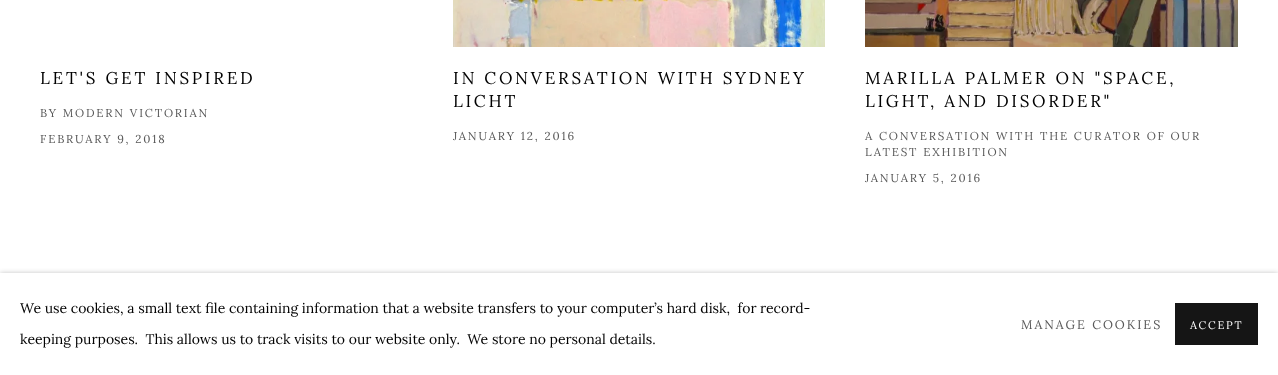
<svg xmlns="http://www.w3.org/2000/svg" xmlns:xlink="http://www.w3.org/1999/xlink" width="1278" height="375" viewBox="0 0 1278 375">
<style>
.cls-1{font:17px Lora;letter-spacing:2.75px;fill:#010101}
.cls-2{font:11.5px Lora;letter-spacing:1.85px;fill:#585858}
.cls-3{font:14px Lora;fill:#010101}
.cls-4{font:12.5px Lora;letter-spacing:2px;fill:#585858}
.cls-5{font:11px Lora;letter-spacing:1.75px;fill:#ffffff}
</style>
<rect width="100%" height="100%" fill="#ffffff"/>
<image xlink:href="image0.png" x="453" y="0" width="372" height="47"/>
<image xlink:href="image1.png" x="865" y="0" width="373" height="47"/>
<rect fill="#000000" fill-opacity="0.23" filter="blur(2.5px)" x="0" y="273" width="1278" height="102"/>
<rect fill="#ffffff" x="0" y="273" width="1278" height="102"/>
<rect fill="#151515" x="1175" y="303" width="83" height="42"/>
<text class="cls-1" x="40" y="84">LET'S GET INSPIRED</text>
<text class="cls-2" x="40" y="117">BY MODERN VICTORIAN</text>
<text class="cls-2" x="40" y="143">FEBRUARY 9, 2018</text>
<text class="cls-1"><tspan x="453" y="84">IN CONVERSATION WITH SYDNEY</tspan><tspan x="453" y="107">LICHT</tspan></text>
<text class="cls-2" x="453" y="140">JANUARY 12, 2016</text>
<text class="cls-1"><tspan x="865" y="84">MARILLA PALMER ON "SPACE,</tspan><tspan x="865" y="107">LIGHT, AND DISORDER"</tspan></text>
<text class="cls-2"><tspan x="865" y="140">A CONVERSATION WITH THE CURATOR OF OUR</tspan><tspan x="865" y="156">LATEST EXHIBITION</tspan></text>
<text class="cls-2" x="865" y="182">JANUARY 5, 2016</text>
<text class="cls-3" xml:space="preserve" x="20" y="313">We use cookies, a small text file containing information that a website transfers to your computer’s hard disk,  for record-</text>
<text class="cls-3" xml:space="preserve" x="20" y="344">keeping purposes.  This allows us to track visits to our website only.  We store no personal details.</text>
<text class="cls-4" x="1021" y="329">MANAGE COOKIES</text>
<text class="cls-5" x="1190" y="329">ACCEPT</text>
</svg>
